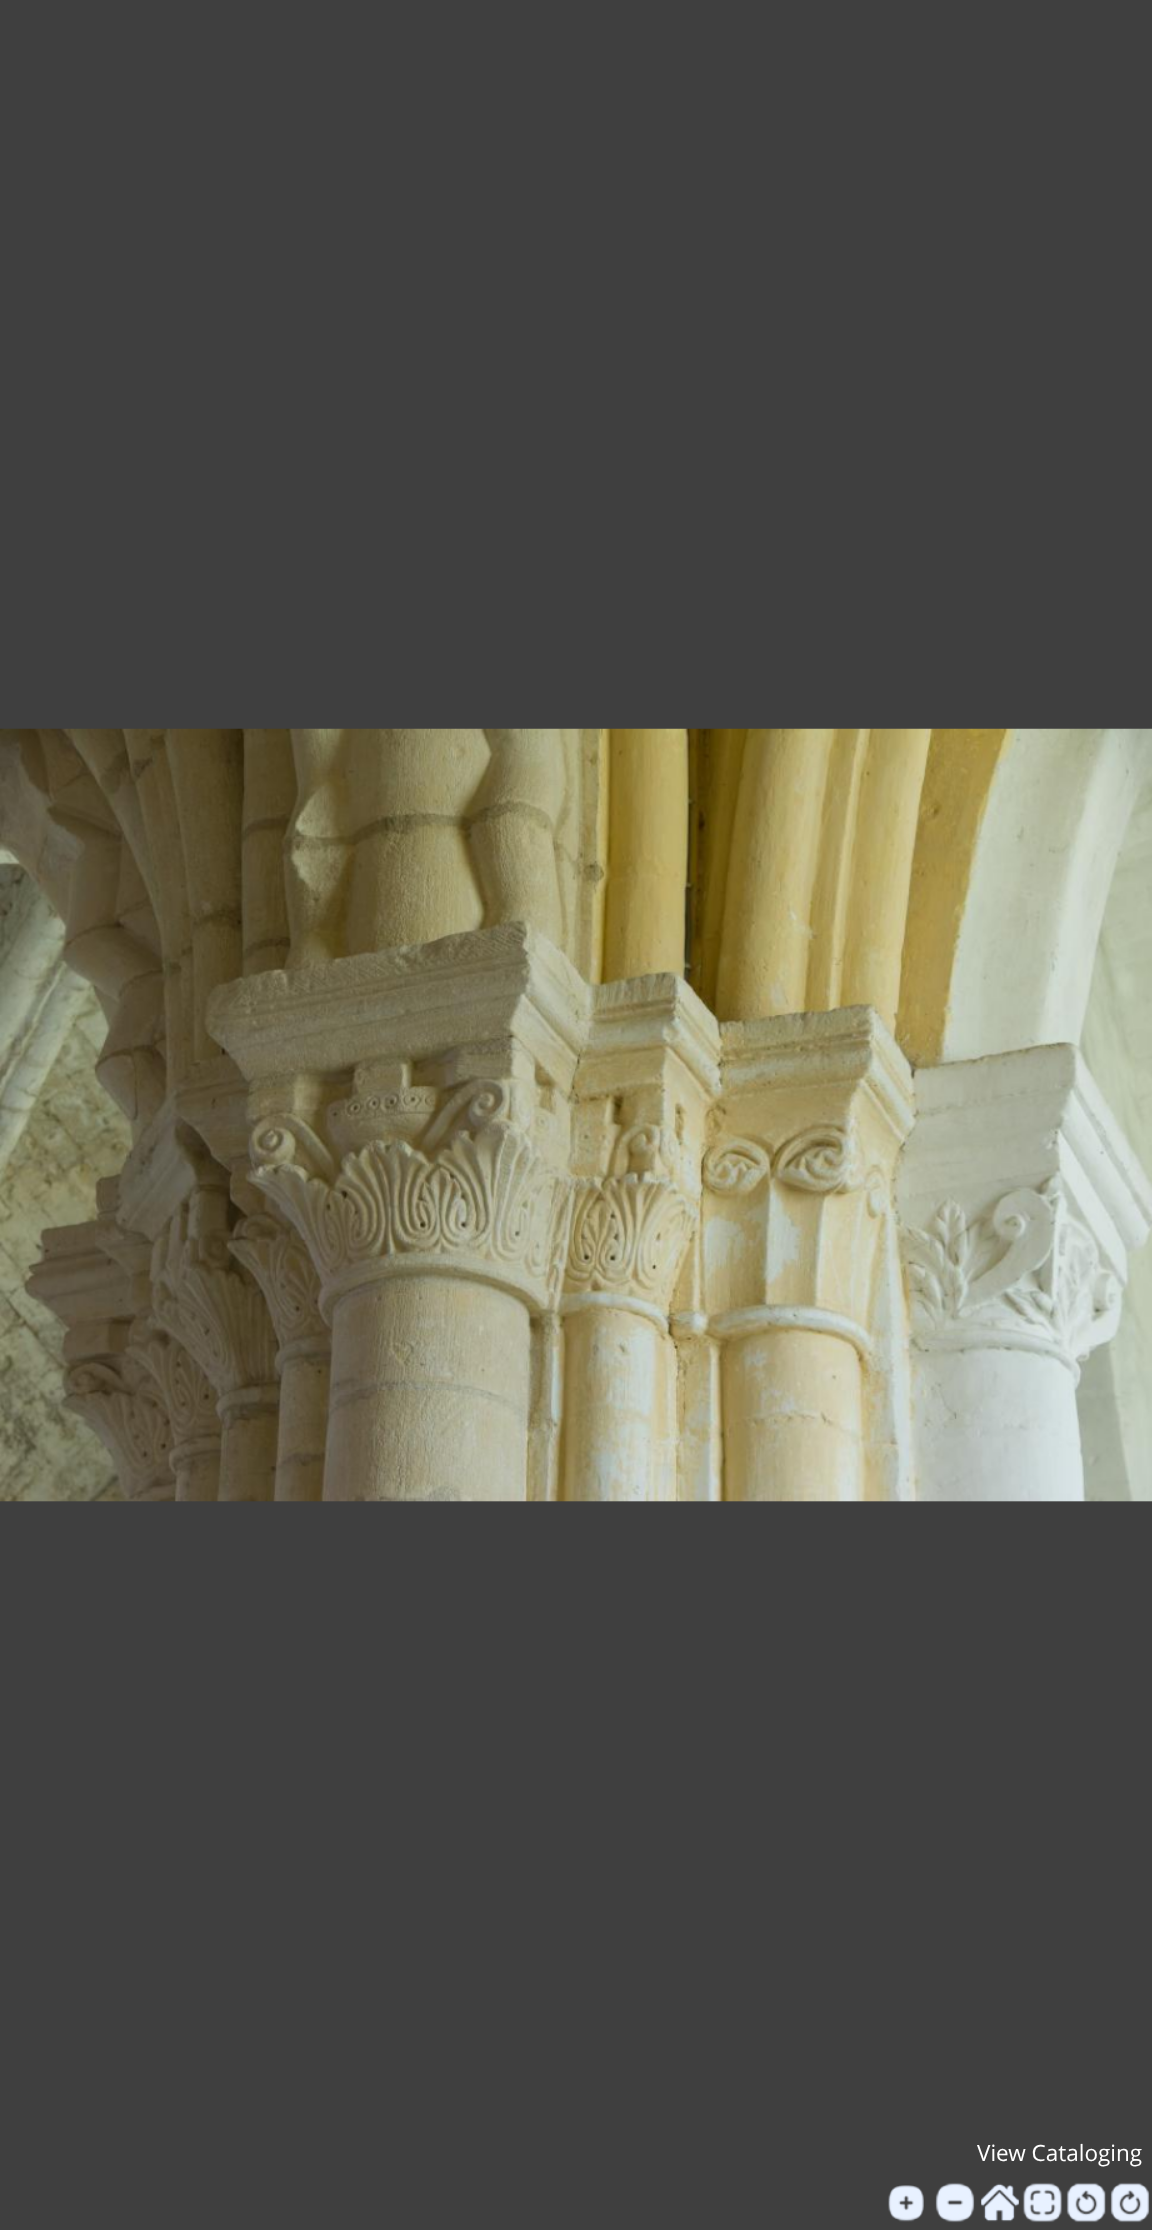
<svg xmlns="http://www.w3.org/2000/svg" xmlns:xlink="http://www.w3.org/1999/xlink" width="1152" height="2230" viewBox="0 0 1152 2230">
<style>
.cls-1{font:22.5px Open Sans;fill:#ffffff}
</style>
<rect width="100%" height="100%" fill="#3f3f3f"/>
<image xlink:href="image0.png" x="0" y="728" width="1152" height="774"/>
<image xlink:href="image1.png" x="888" y="2185" width="36" height="37"/>
<image xlink:href="image2.png" x="888" y="2185" width="36" height="37"/>
<image xlink:href="image3.png" x="935" y="2182" width="40" height="41"/>
<image xlink:href="image4.png" x="936" y="2183" width="38" height="39"/>
<image xlink:href="image5.png" x="981" y="2183" width="38" height="39"/>
<image xlink:href="image6.png" x="981" y="2184" width="38" height="37"/>
<image xlink:href="image7.png" x="1022" y="2182" width="41" height="41"/>
<image xlink:href="image8.png" x="1023" y="2183" width="39" height="39"/>
<image xlink:href="image9.png" x="1066" y="2182" width="40" height="41"/>
<image xlink:href="image10.png" x="1067" y="2183" width="39" height="39"/>
<image xlink:href="image11.png" x="1110" y="2182" width="40" height="41"/>
<image xlink:href="image12.png" x="1111" y="2183" width="38" height="39"/>
<text class="cls-1" x="977" y="2161">View Cataloging</text>
</svg>
